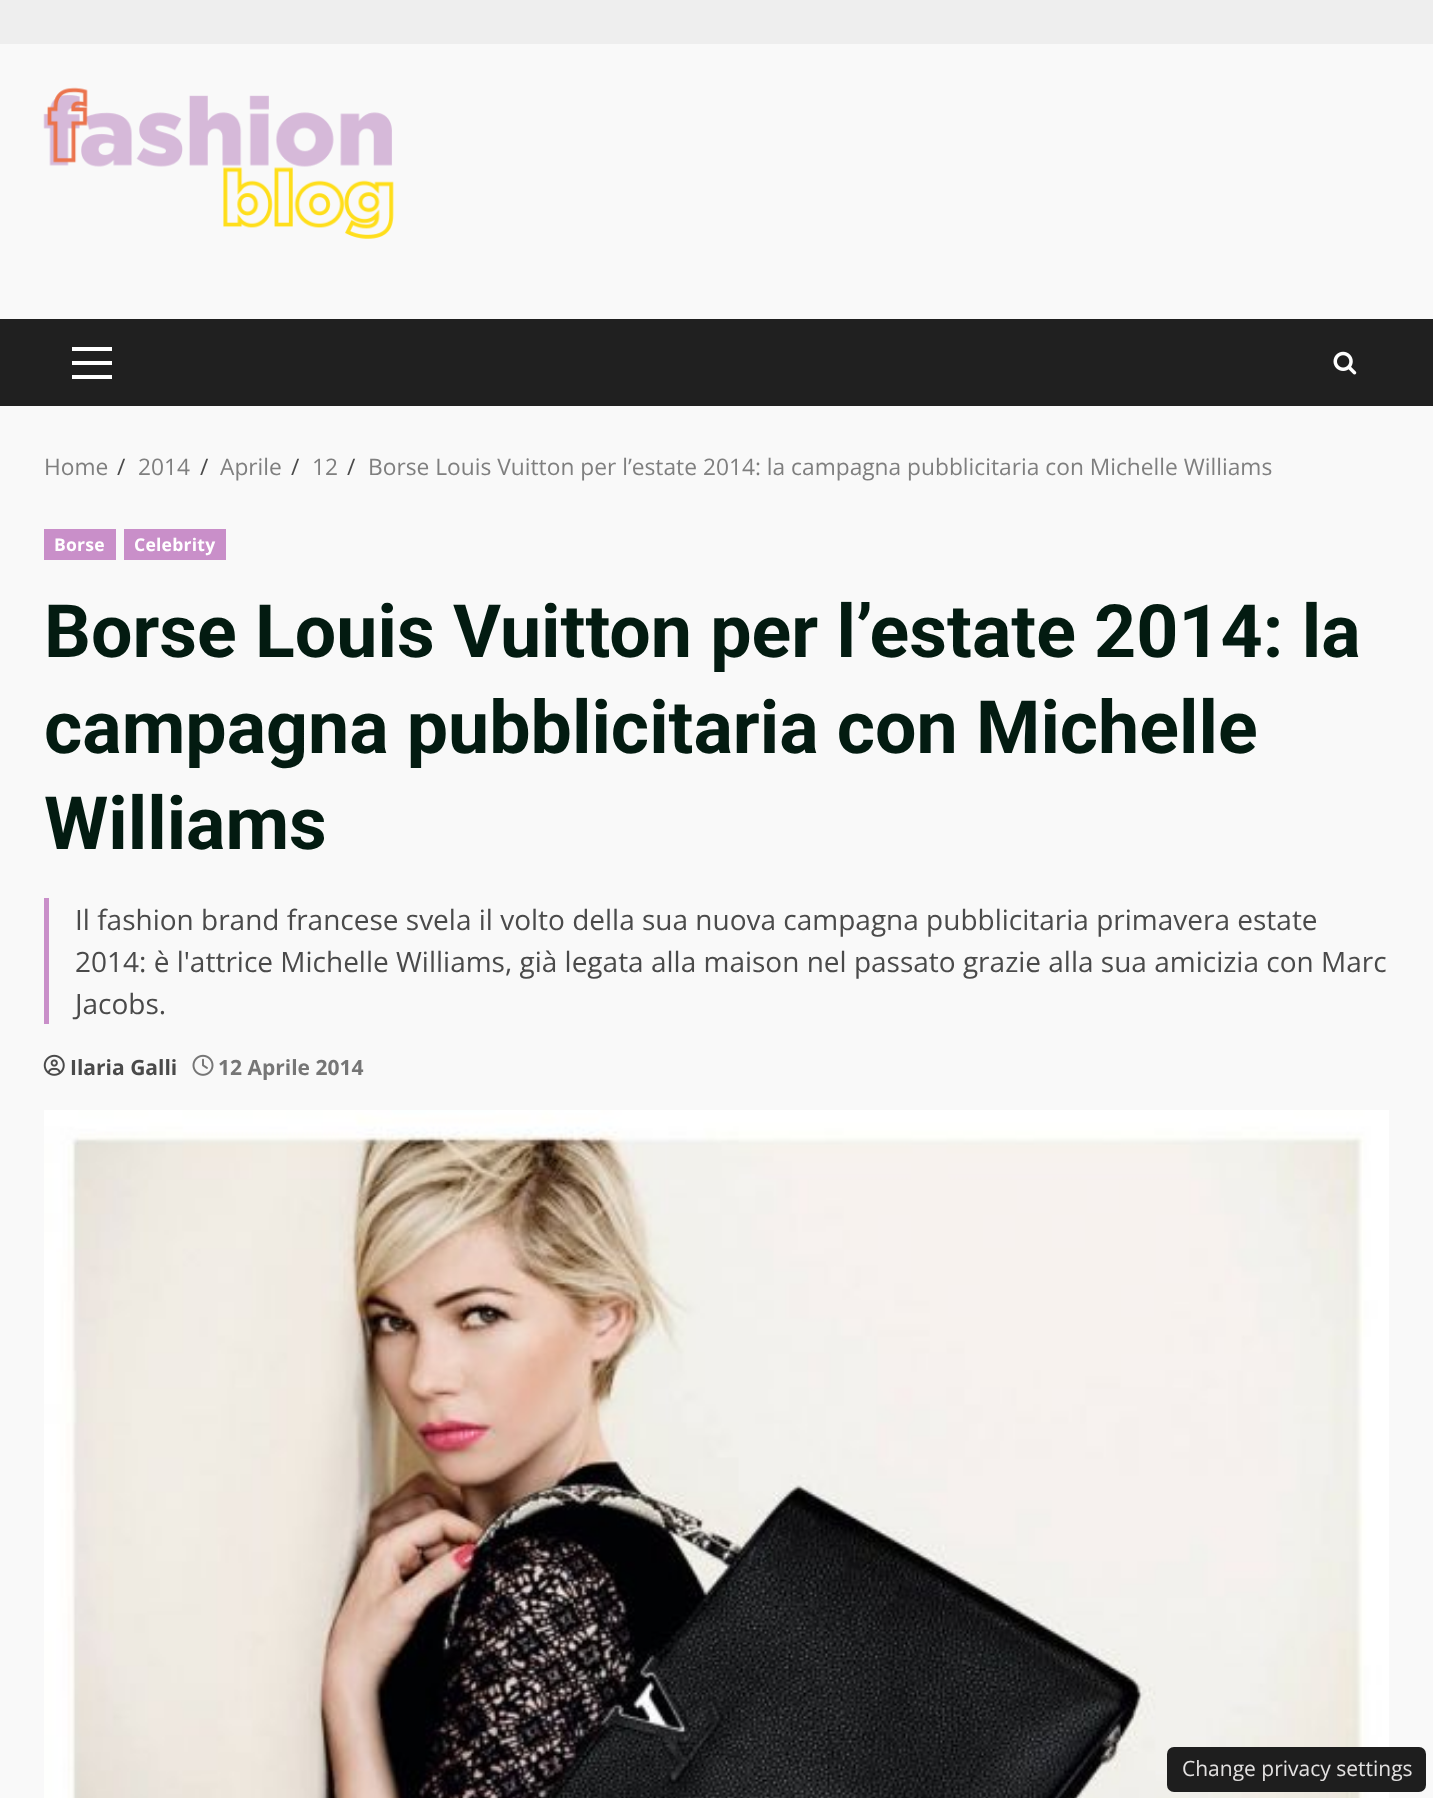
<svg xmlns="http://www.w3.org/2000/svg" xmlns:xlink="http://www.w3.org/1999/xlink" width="1433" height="1798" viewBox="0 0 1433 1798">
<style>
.cls-1{font:22.75px Open Sans;fill:#7f7f7f}
.cls-2{font:22.75px Open Sans;fill:#4a4a4a}
.cls-3{font:bold 17.5px Open Sans;letter-spacing:0.25px;fill:#ffffff}
.cls-4{font:bold 73.5px Roboto;fill:#031b11}
.cls-5{font:28px Open Sans;fill:#4a4a4a}
.cls-6{font:bold 21px Open Sans;fill:#4a4a4a}
.cls-7{font:bold 21px Open Sans;fill:#767676}
.cls-8{font:21px Open Sans;fill:#e3e1e1}
</style>
<rect width="100%" height="100%" fill="#eeeeee"/>
<rect fill="#f9f9f9" x="0" y="44" width="1433" height="1754"/>
<image xlink:href="image0.png" x="43" y="87" width="351" height="152"/>
<rect fill="#202020" x="0" y="319" width="1433" height="87"/>
<rect fill="#ffffff" x="72" y="361" width="40" height="4"/>
<rect fill="#ffffff" x="72" y="347" width="40" height="4"/>
<rect fill="#ffffff" x="72" y="375" width="40" height="4"/>
<image xlink:href="image1.png" x="1333" y="351" width="24" height="24"/>
<rect fill="#c98fc9" x="44" y="529" width="72" height="31"/>
<rect fill="#c98fc9" x="124" y="529" width="102" height="31"/>
<rect fill="#c98fc9" x="44" y="898" width="5" height="126"/>
<image xlink:href="image2.png" x="43" y="1054" width="22" height="22"/>
<image xlink:href="image3.png" x="192" y="1054" width="22" height="22"/>
<image xlink:href="image4.png" x="44" y="1110" width="1345" height="688"/>
<rect fill="#1e1e1e" x="1167" y="1747" width="259" height="45" rx="7"/>
<text class="cls-1" x="44" y="475">Home</text>
<text class="cls-2" x="117" y="475">/</text>
<text class="cls-1" x="138" y="475">2014</text>
<text class="cls-2" x="200" y="475">/</text>
<text class="cls-1" x="220" y="475">Aprile</text>
<text class="cls-2" x="291" y="475">/</text>
<text class="cls-1" x="312" y="475">12</text>
<text class="cls-2" x="347" y="475">/</text>
<text class="cls-1" x="368" y="475">Borse Louis Vuitton per l’estate 2014: la campagna pubblicitaria con Michelle Williams</text>
<text class="cls-3" x="54" y="551">Borse</text>
<text class="cls-3" x="134" y="551">Celebrity</text>
<text class="cls-4"><tspan x="44" y="657">Borse Louis Vuitton per l’estate 2014: la</tspan><tspan x="44" y="753">campagna pubblicitaria con Michelle</tspan><tspan x="44" y="849">Williams</tspan></text>
<text class="cls-5"><tspan x="75" y="930">Il fashion brand francese svela il volto della sua nuova campagna pubblicitaria primavera estate</tspan><tspan x="75" y="972">2014: è l'attrice Michelle Williams, già legata alla maison nel passato grazie alla sua amicizia con Marc</tspan><tspan x="75" y="1014">Jacobs.</tspan></text>
<text class="cls-6" x="70" y="1075">Ilaria Galli</text>
<text class="cls-7" x="218" y="1075">12 Aprile 2014</text>
<text class="cls-8" x="1182" y="1776">Change privacy settings</text>
</svg>
